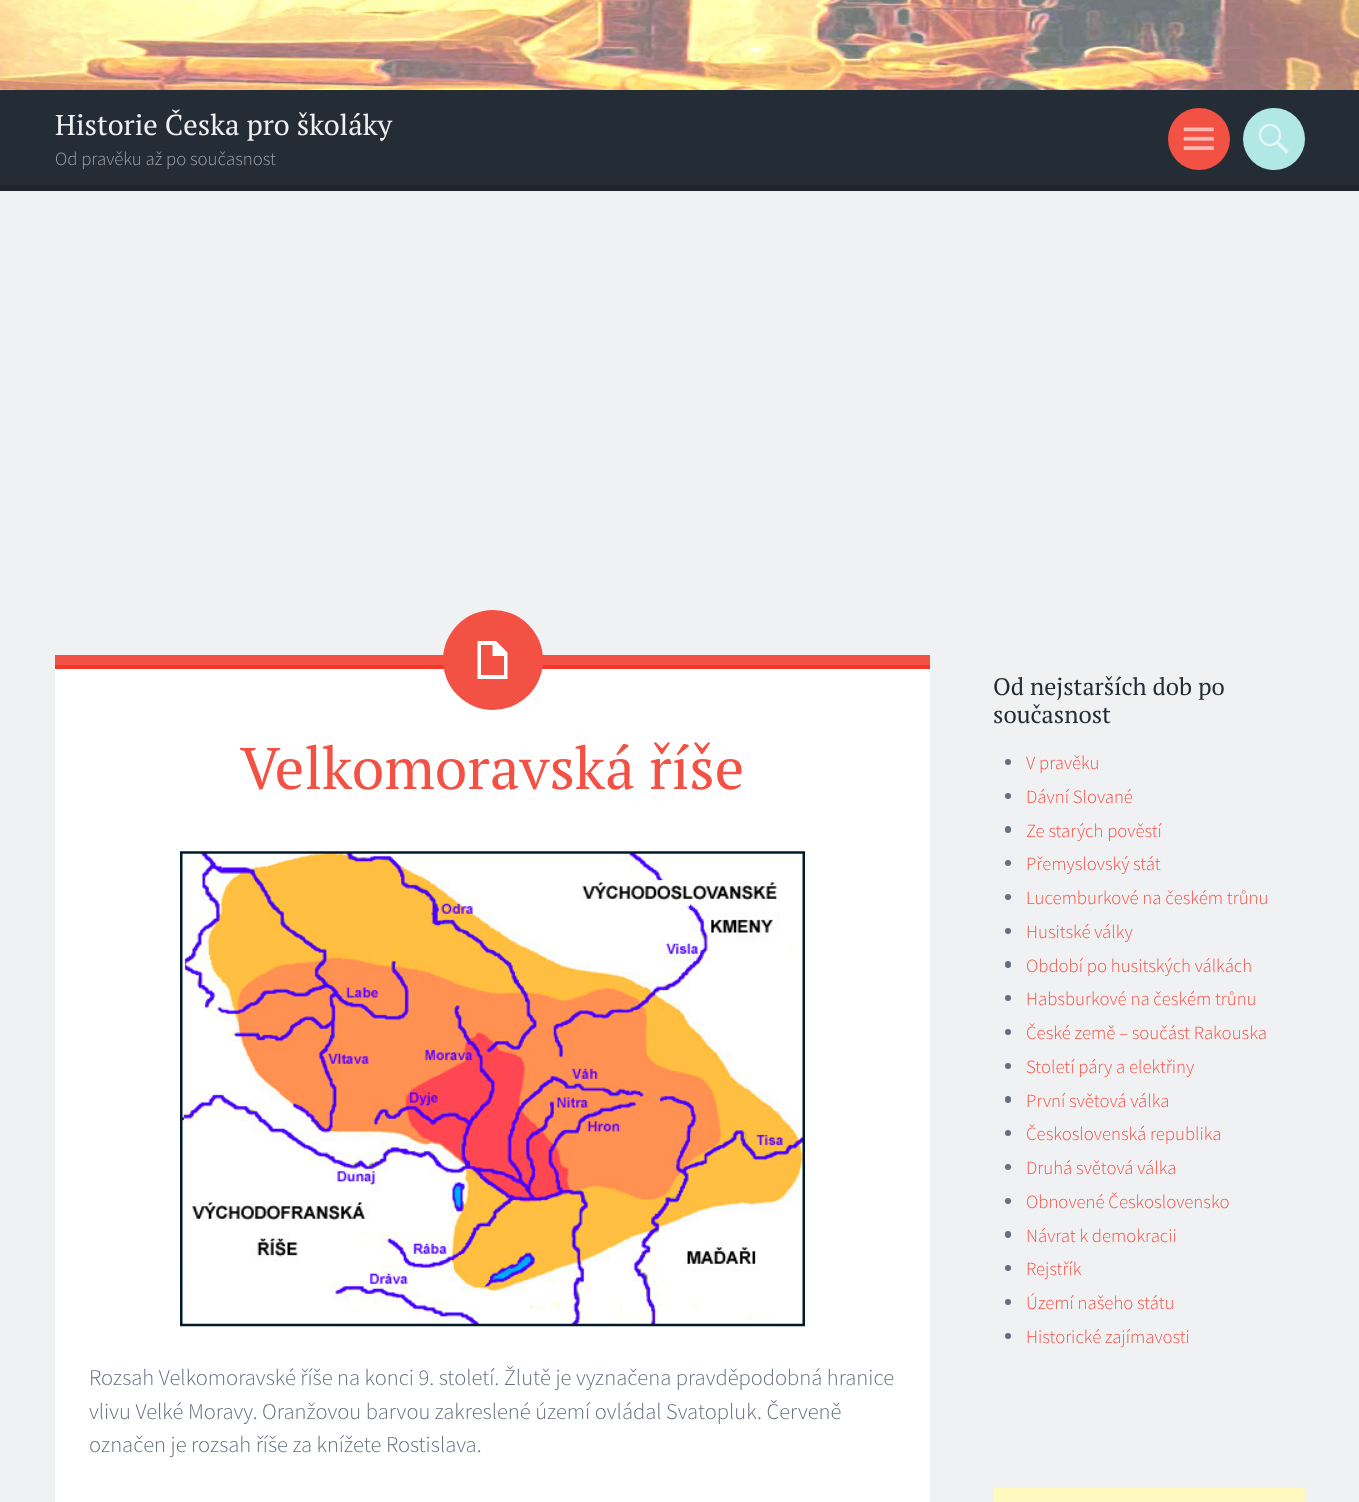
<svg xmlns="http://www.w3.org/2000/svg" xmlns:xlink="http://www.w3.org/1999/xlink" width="1359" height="1502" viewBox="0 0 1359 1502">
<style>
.cls-1{font:28.75px PT Serif;fill:#f0f1f3}
.cls-2{font:300 18.75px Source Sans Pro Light;fill:#9ea3a7}
.cls-3{font:58.75px PT Serif;fill:#f45145}
.cls-4{font:300 22.5px Source Sans Pro Light;fill:#656e7f}
.cls-5{font:24px PT Serif;fill:#242d36}
.cls-6{font:300 18.75px Source Sans Pro Light;fill:#f45145}
</style>
<rect width="100%" height="100%" fill="#f0f1f3"/>
<rect fill="#242d36" x="0" y="90" width="1359" height="95"/>
<rect fill="#1e252d" x="0" y="185" width="1359" height="6"/>
<image xlink:href="image0.png" x="0" y="0" width="1359" height="90"/>
<circle fill="#f45145" cx="1199" cy="139" r="31"/>
<image xlink:href="image1.png" x="1183" y="127" width="31" height="23"/>
<circle fill="#b1e8e6" cx="1274" cy="139" r="31"/>
<image xlink:href="image2.png" x="1258" y="123" width="31" height="31"/>
<rect fill="#ffffff" x="55" y="669" width="875" height="833"/>
<rect fill="#f45145" x="55" y="655" width="875" height="10"/>
<rect fill="#f23628" x="55" y="665" width="875" height="4"/>
<circle fill="#f45145" cx="493" cy="660" r="50"/>
<path fill="#ffffff" d="M496 641L507.5 652.5V679H477.5V641ZM504 675V656H492.5V645H481V675Z"/>
<image xlink:href="image3.png" x="180" y="851" width="625" height="476"/>
<circle fill="#656e7f" cx="1008" cy="762" r="3"/>
<circle fill="#656e7f" cx="1008" cy="796" r="3"/>
<rect fill="#656e7f" x="1005" y="826" width="6" height="7" rx="3"/>
<circle fill="#656e7f" cx="1008" cy="863" r="3"/>
<circle fill="#656e7f" cx="1008" cy="897" r="3"/>
<circle fill="#656e7f" cx="1008" cy="931" r="3"/>
<rect fill="#656e7f" x="1005" y="961" width="6" height="7" rx="3"/>
<circle fill="#656e7f" cx="1008" cy="998" r="3"/>
<circle fill="#656e7f" cx="1008" cy="1032" r="3"/>
<circle fill="#656e7f" cx="1008" cy="1066" r="3"/>
<rect fill="#656e7f" x="1005" y="1096" width="6" height="7" rx="3"/>
<circle fill="#656e7f" cx="1008" cy="1133" r="3"/>
<circle fill="#656e7f" cx="1008" cy="1167" r="3"/>
<circle fill="#656e7f" cx="1008" cy="1201" r="3"/>
<rect fill="#656e7f" x="1005" y="1231" width="6" height="7" rx="3"/>
<circle fill="#656e7f" cx="1008" cy="1268" r="3"/>
<circle fill="#656e7f" cx="1008" cy="1302" r="3"/>
<circle fill="#656e7f" cx="1008" cy="1336" r="3"/>
<rect fill="#fff9c0" x="993" y="1488" width="312" height="14"/>
<text class="cls-1" x="55" y="135">Historie Česka pro školáky</text>
<text class="cls-2" x="55" y="165">Od pravěku až po současnost</text>
<text class="cls-3" x="240" y="789">Velkomoravská říše</text>
<text class="cls-4"><tspan x="89" y="1385">Rozsah Velkomoravské říše na konci 9. století. Žlutě je vyznačena pravděpodobná hranice</tspan><tspan x="89" y="1419">vlivu Velké Moravy. Oranžovou barvou zakreslené území ovládal Svatopluk. Červeně</tspan><tspan x="89" y="1452">označen je rozsah říše za knížete Rostislava.</tspan></text>
<text class="cls-5"><tspan x="993" y="695">Od nejstarších dob po</tspan><tspan x="993" y="723">současnost</tspan></text>
<text class="cls-6"><tspan x="1026" y="769">V pravěku</tspan><tspan x="1026" y="803">Dávní Slované</tspan><tspan x="1026" y="837">Ze starých pověstí</tspan><tspan x="1026" y="870">Přemyslovský stát</tspan><tspan x="1026" y="904">Lucemburkové na českém trůnu</tspan><tspan x="1026" y="938">Husitské války</tspan><tspan x="1026" y="972">Období po husitských válkách</tspan><tspan x="1026" y="1005">Habsburkové na českém trůnu</tspan><tspan x="1026" y="1039">České země – součást Rakouska</tspan><tspan x="1026" y="1073">Století páry a elektřiny</tspan><tspan x="1026" y="1107">První světová válka</tspan><tspan x="1026" y="1140">Československá republika</tspan><tspan x="1026" y="1174">Druhá světová válka</tspan><tspan x="1026" y="1208">Obnovené Československo</tspan><tspan x="1026" y="1242">Návrat k demokracii</tspan><tspan x="1026" y="1275">Rejstřík</tspan><tspan x="1026" y="1309">Území našeho státu</tspan><tspan x="1026" y="1343">Historické zajímavosti</tspan></text>
</svg>
